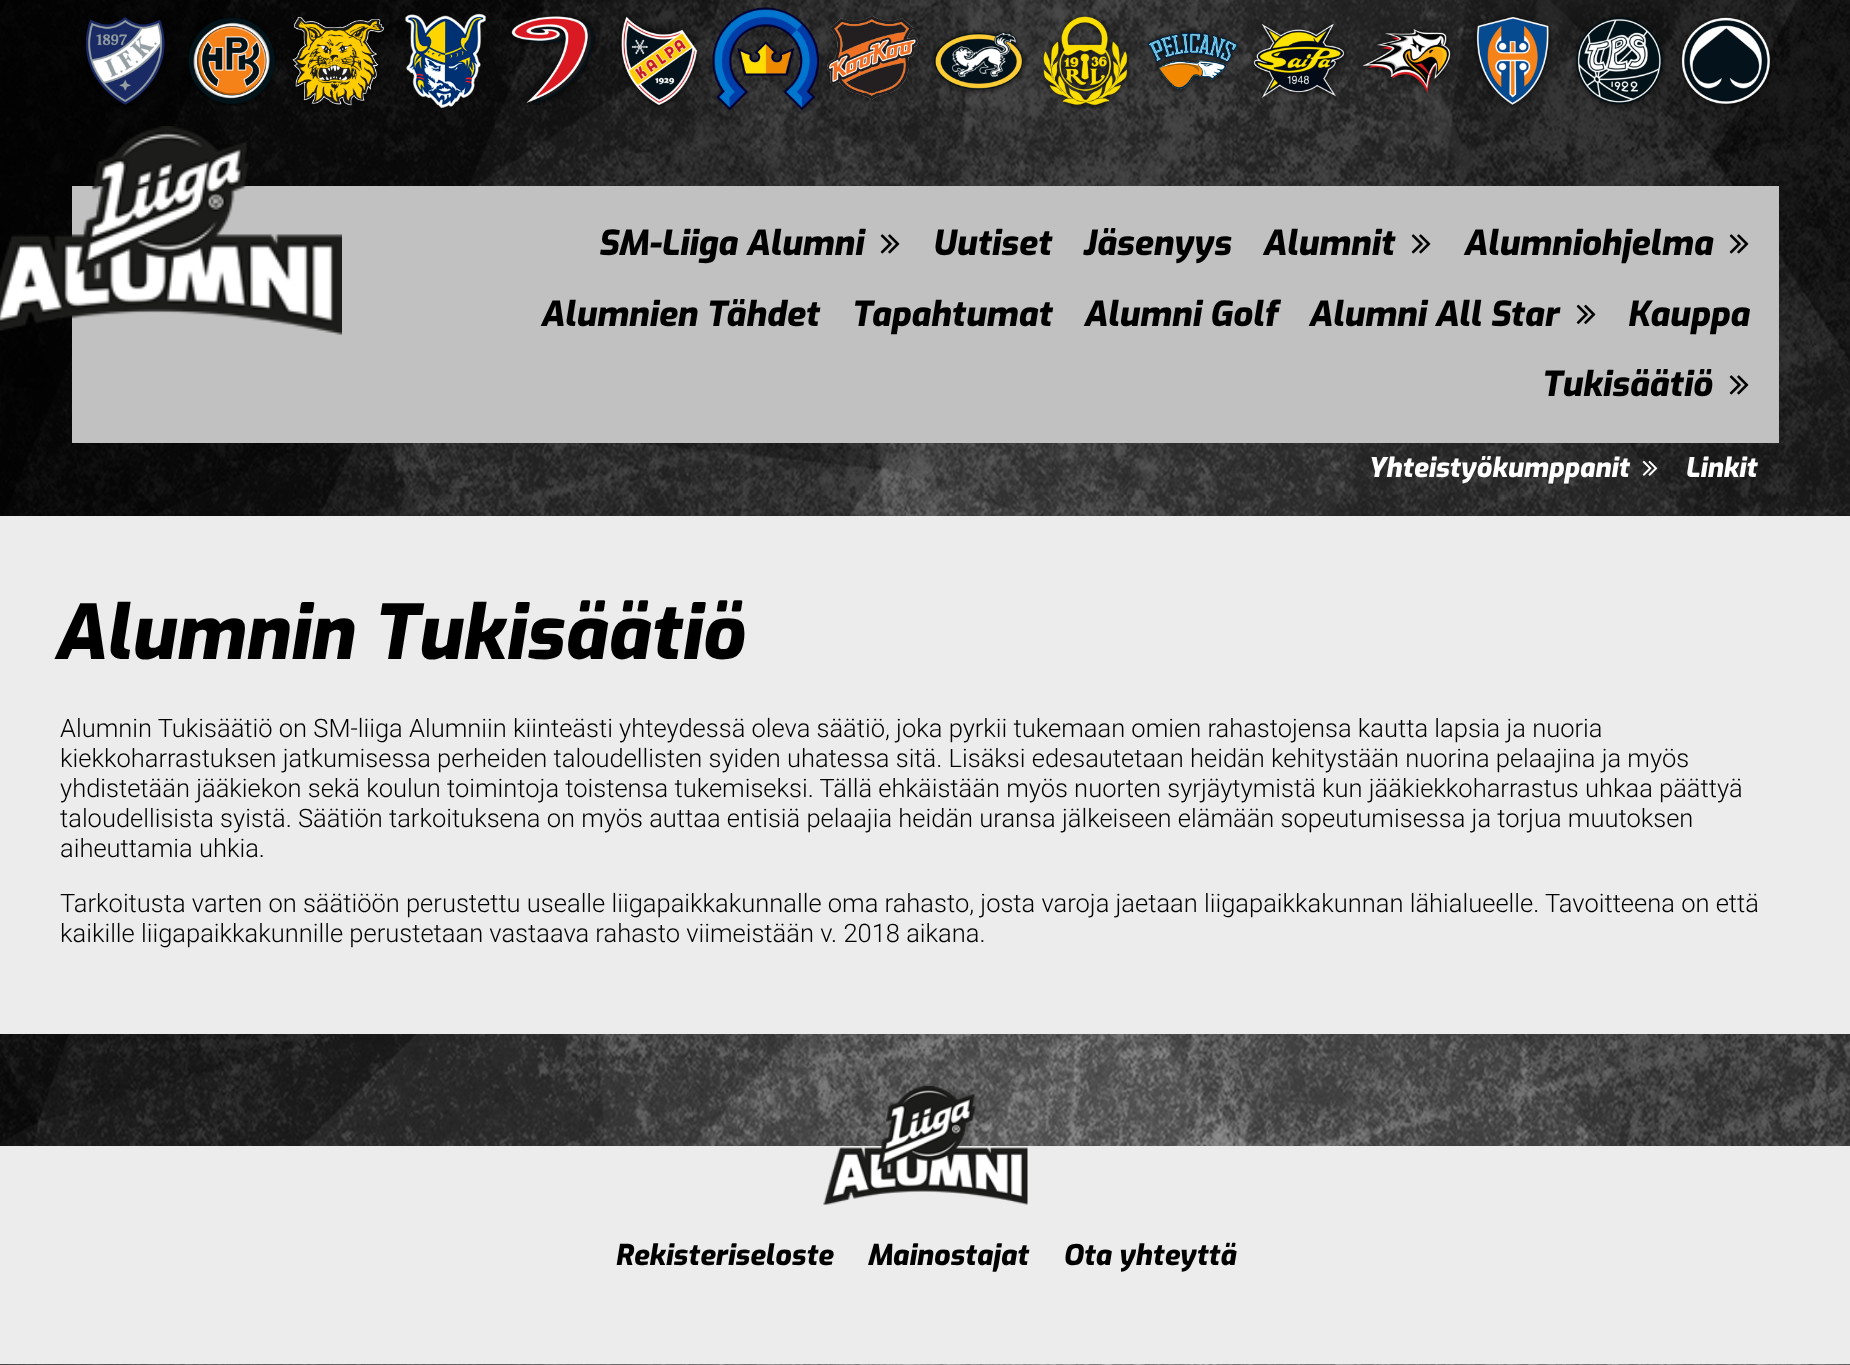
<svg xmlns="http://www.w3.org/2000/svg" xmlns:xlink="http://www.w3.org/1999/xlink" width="1850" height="1365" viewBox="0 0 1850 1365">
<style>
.cls-1{font:italic 800 34.5px Exo;fill:#000000}
.cls-2{font:italic 800 27px Exo;fill:#ffffff}
.cls-3{font:italic 800 75px Exo;fill:#000000}
.cls-4{font:300 25.5px Roboto;fill:#000000}
.cls-5{font:italic 800 28.5px Exo;fill:#000000}
</style>
<rect width="100%" height="100%" fill="#ffffff"/>
<image xlink:href="image0.png" x="0" y="0" width="1850" height="1365"/>
<image xlink:href="image1.png" x="86" y="17" width="79" height="88"/>
<image xlink:href="image2.png" x="188" y="17" width="88" height="89"/>
<image xlink:href="image3.png" x="292" y="16" width="92" height="90"/>
<image xlink:href="image4.png" x="405" y="13" width="81" height="95"/>
<image xlink:href="image5.png" x="511" y="14" width="85" height="91"/>
<image xlink:href="image6.png" x="619" y="16" width="81" height="91"/>
<image xlink:href="image7.png" x="712" y="7" width="107" height="104"/>
<image xlink:href="image8.png" x="826" y="14" width="94" height="87"/>
<image xlink:href="image9.png" x="931" y="30" width="95" height="64"/>
<image xlink:href="image10.png" x="1040" y="14" width="91" height="95"/>
<image xlink:href="image11.png" x="1145" y="29" width="95" height="63"/>
<image xlink:href="image12.png" x="1252" y="23" width="95" height="76"/>
<image xlink:href="image13.png" x="1362" y="28" width="91" height="66"/>
<image xlink:href="image14.png" x="1474" y="16" width="78" height="92"/>
<image xlink:href="image15.png" x="1572" y="17" width="94" height="92"/>
<image xlink:href="image16.png" x="1679" y="16" width="93" height="92"/>
<rect fill="#c1c1c1" x="72" y="186" width="1707" height="257"/>
<image xlink:href="image17.png" x="0" y="126" width="342" height="209"/>
<image xlink:href="image18.png" x="880" y="234" width="20" height="20"/>
<image xlink:href="image18.png" x="1411" y="234" width="20" height="20"/>
<image xlink:href="image18.png" x="1729" y="234" width="20" height="20"/>
<image xlink:href="image19.png" x="1576" y="304" width="20" height="20"/>
<image xlink:href="image18.png" x="1729" y="375" width="20" height="20"/>
<image xlink:href="image20.png" x="1642" y="460" width="16" height="16"/>
<rect fill="#ececec" x="0" y="516" width="1850" height="518"/>
<rect fill="#ececec" x="0" y="1146" width="1850" height="218"/>
<image xlink:href="image21.png" x="823" y="1086" width="205" height="119"/>
<text class="cls-1" x="598" y="255">SM-Liiga Alumni</text>
<text class="cls-1" x="932" y="255">Uutiset</text>
<text class="cls-1" x="1082" y="255">Jäsenyys</text>
<text class="cls-1" x="1262" y="255">Alumnit</text>
<text class="cls-1" x="1463" y="255">Alumniohjelma</text>
<text class="cls-1" x="540" y="326">Alumnien Tähdet</text>
<text class="cls-1" x="851" y="326">Tapahtumat</text>
<text class="cls-1" x="1083" y="326">Alumni Golf</text>
<text class="cls-1" x="1308" y="326">Alumni All Star</text>
<text class="cls-1" x="1627" y="326">Kauppa</text>
<text class="cls-1" x="1541" y="396">Tukisäätiö</text>
<text class="cls-2" x="1368" y="477">Yhteistyökumppanit</text>
<text class="cls-2" x="1685" y="477">Linkit</text>
<text class="cls-3" x="53" y="659">Alumnin Tukisäätiö</text>
<text class="cls-4"><tspan x="60" y="737">Alumnin Tukisäätiö on SM-liiga Alumniin kiinteästi yhteydessä oleva säätiö, joka pyrkii tukemaan omien rahastojensa kautta lapsia ja nuoria</tspan><tspan x="60" y="767">kiekkoharrastuksen jatkumisessa perheiden taloudellisten syiden uhatessa sitä. Lisäksi edesautetaan heidän kehitystään nuorina pelaajina ja myös</tspan><tspan x="60" y="797">yhdistetään jääkiekon sekä koulun toimintoja toistensa tukemiseksi. Tällä ehkäistään myös nuorten syrjäytymistä kun jääkiekkoharrastus uhkaa päättyä</tspan><tspan x="60" y="827">taloudellisista syistä. Säätiön tarkoituksena on myös auttaa entisiä pelaajia heidän uransa jälkeiseen elämään sopeutumisessa ja torjua muutoksen</tspan><tspan x="60" y="857">aiheuttamia uhkia.</tspan></text>
<text class="cls-4"><tspan x="60" y="912">Tarkoitusta varten on säätiöön perustettu usealle liigapaikkakunnalle oma rahasto, josta varoja jaetaan liigapaikkakunnan lähialueelle. Tavoitteena on että</tspan><tspan x="60" y="942">kaikille liigapaikkakunnille perustetaan vastaava rahasto viimeistään v. 2018 aikana.</tspan></text>
<text class="cls-5" x="615" y="1265">Rekisteriseloste</text>
<text class="cls-5" x="867" y="1265">Mainostajat</text>
<text class="cls-5" x="1063" y="1265">Ota yhteyttä</text>
</svg>
